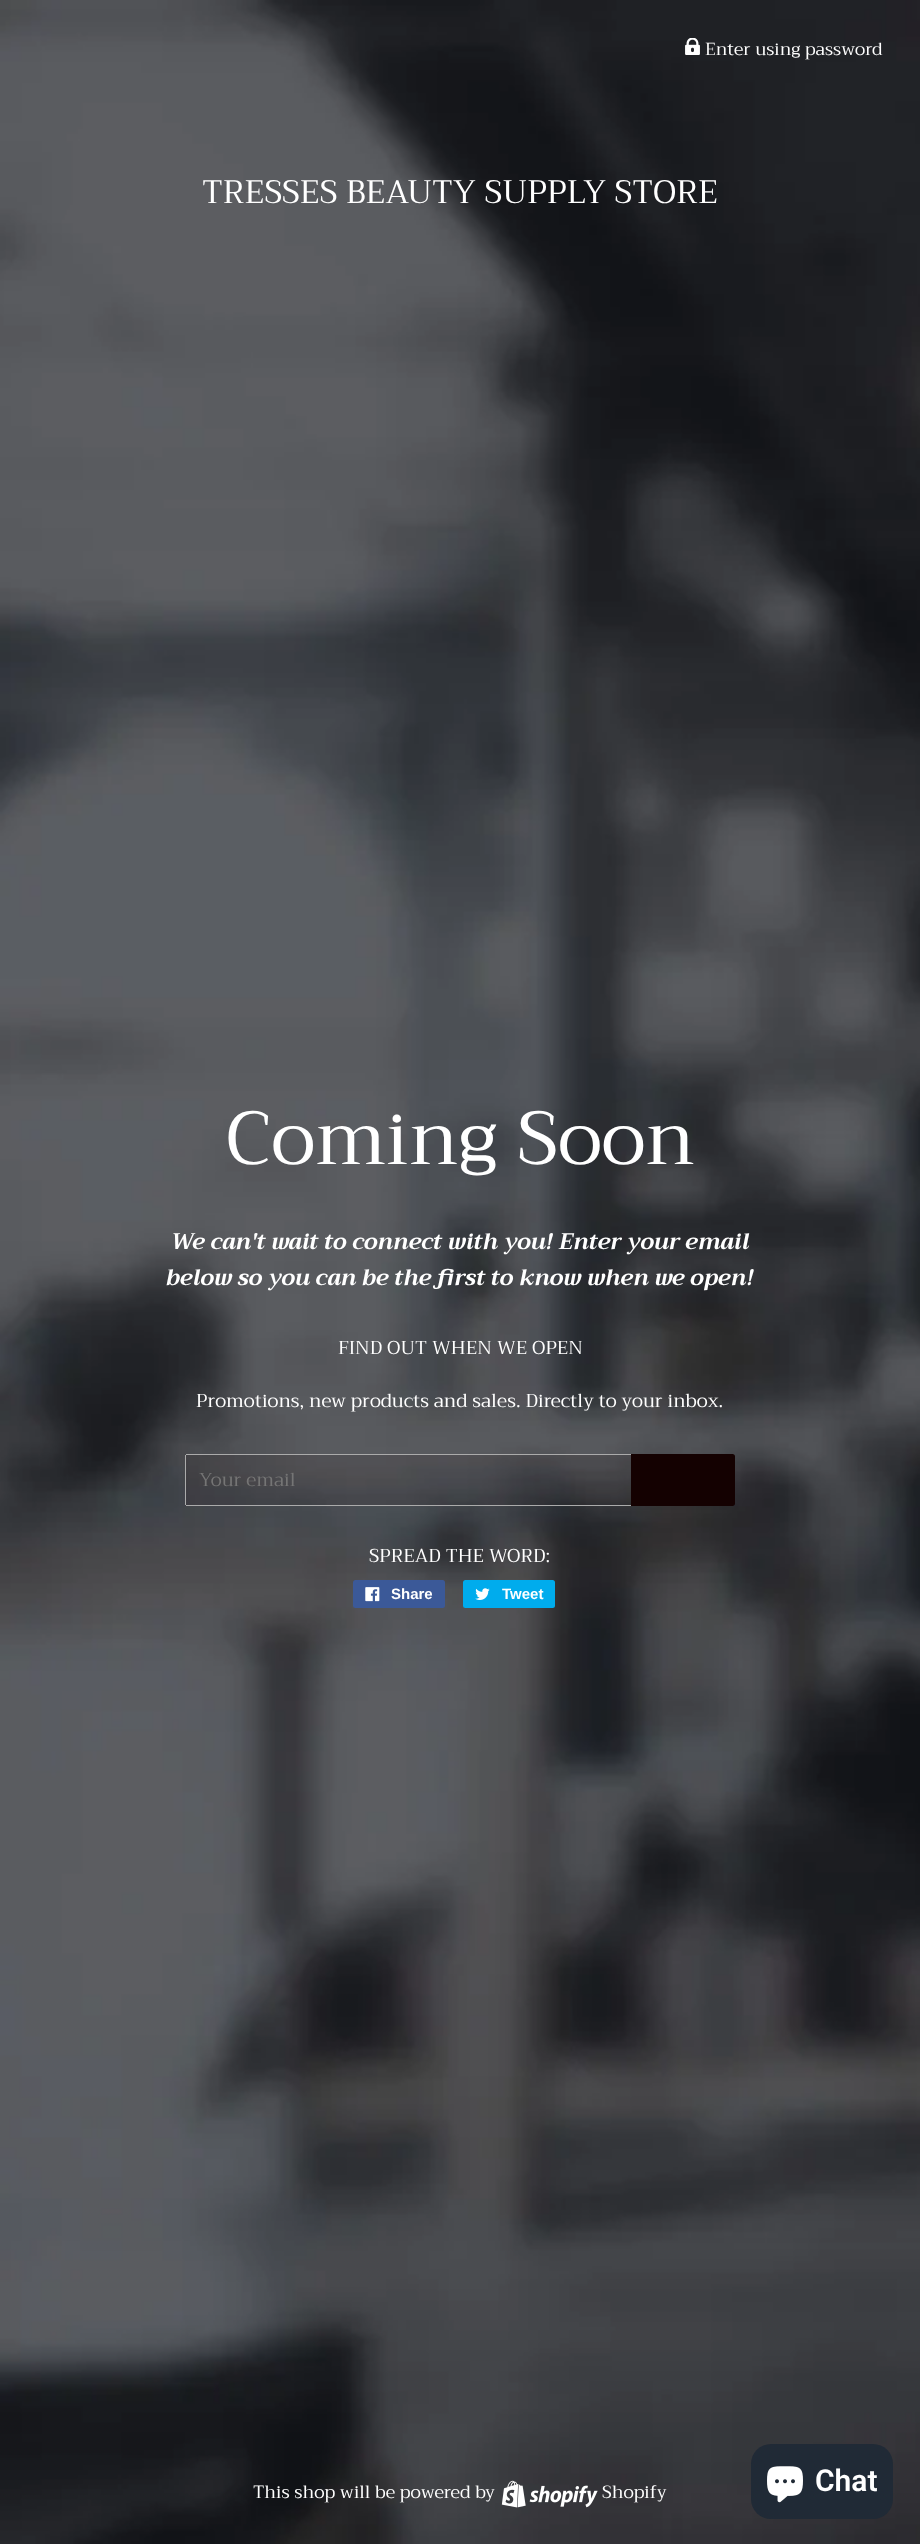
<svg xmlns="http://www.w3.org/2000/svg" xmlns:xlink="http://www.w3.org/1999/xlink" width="920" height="2544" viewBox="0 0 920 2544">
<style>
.cls-1{font:17.5px Trirong;fill:#ffffff}
.cls-2{font:32.5px Trirong;fill:#ffffff}
.cls-3{font:75px Trirong;fill:#ffffff}
.cls-4{font:italic bold 22.5px Trirong;fill:#ffffff}
.cls-5{font:18.75px Trirong;fill:#ffffff}
.cls-6{font:18.75px Trirong;fill:#757575}
.cls-7{font:bold 15px Liberation Sans;fill:#ffffff}
.cls-8{font:17.75px Trirong;fill:#ffffff}
.cls-9{font:600 30px Roboto;fill:#ffffff}
</style>
<rect width="100%" height="100%" fill="#ffffff"/>
<image xlink:href="image0.png" x="0" y="0" width="920" height="2544"/>
<image xlink:href="image1.png" x="685" y="38" width="15" height="17"/>
<path fill="#140101" fill-opacity="0.1" d="M187.5 1454H631V1506H187.5C186 1506 185 1505 185 1503.5V1456.5C185 1455 186 1454 187.5 1454Z"/>
<rect fill="#ababab" x="186" y="1454" width="445" height="1"/>
<rect fill="#ababab" x="186" y="1505" width="445" height="1"/>
<rect fill="#ababab" x="185" y="1455" width="1" height="50"/>
<path fill="#140101" d="M631 1454H732.5C734 1454 735 1455 735 1456.5V1503.5C735 1505 734 1506 732.5 1506H631Z"/>
<rect fill="#3b5998" x="353" y="1580" width="92" height="28" rx="2.5"/>
<image xlink:href="image2.png" x="365" y="1587" width="15" height="15"/>
<rect fill="#00aced" x="463" y="1580" width="92" height="28" rx="2.5"/>
<image xlink:href="image3.png" x="475" y="1588" width="15" height="12"/>
<image xlink:href="image4.png" x="501" y="2480" width="97" height="28"/>
<rect fill="#202a36" x="751" y="2444" width="142" height="75" rx="20"/>
<image xlink:href="image5.png" x="767" y="2466" width="36" height="37"/>
<text class="cls-1" x="705" y="55">Enter using password</text>
<text class="cls-2" x="202" y="203">TRESSES BEAUTY SUPPLY STORE</text>
<text class="cls-3" x="225" y="1164">Coming Soon</text>
<text class="cls-4" x="171" y="1249">We can't wait to connect with you! Enter your email</text>
<text class="cls-4" x="166" y="1285">below so you can be the first to know when we open!</text>
<text class="cls-5" x="338" y="1354">FIND OUT WHEN WE OPEN</text>
<text class="cls-5" x="196" y="1407">Promotions, new products and sales. Directly to your inbox.</text>
<text class="cls-6" x="199" y="1486">Your email</text>
<text class="cls-5" x="369" y="1562">SPREAD THE WORD:</text>
<text class="cls-7" x="391" y="1599">Share</text>
<text class="cls-7" x="502" y="1599">Tweet</text>
<text class="cls-8" x="253" y="2498">This shop will be powered by</text>
<text class="cls-8" x="602" y="2498">Shopify</text>
<text class="cls-9" x="815" y="2491">Chat</text>
</svg>
